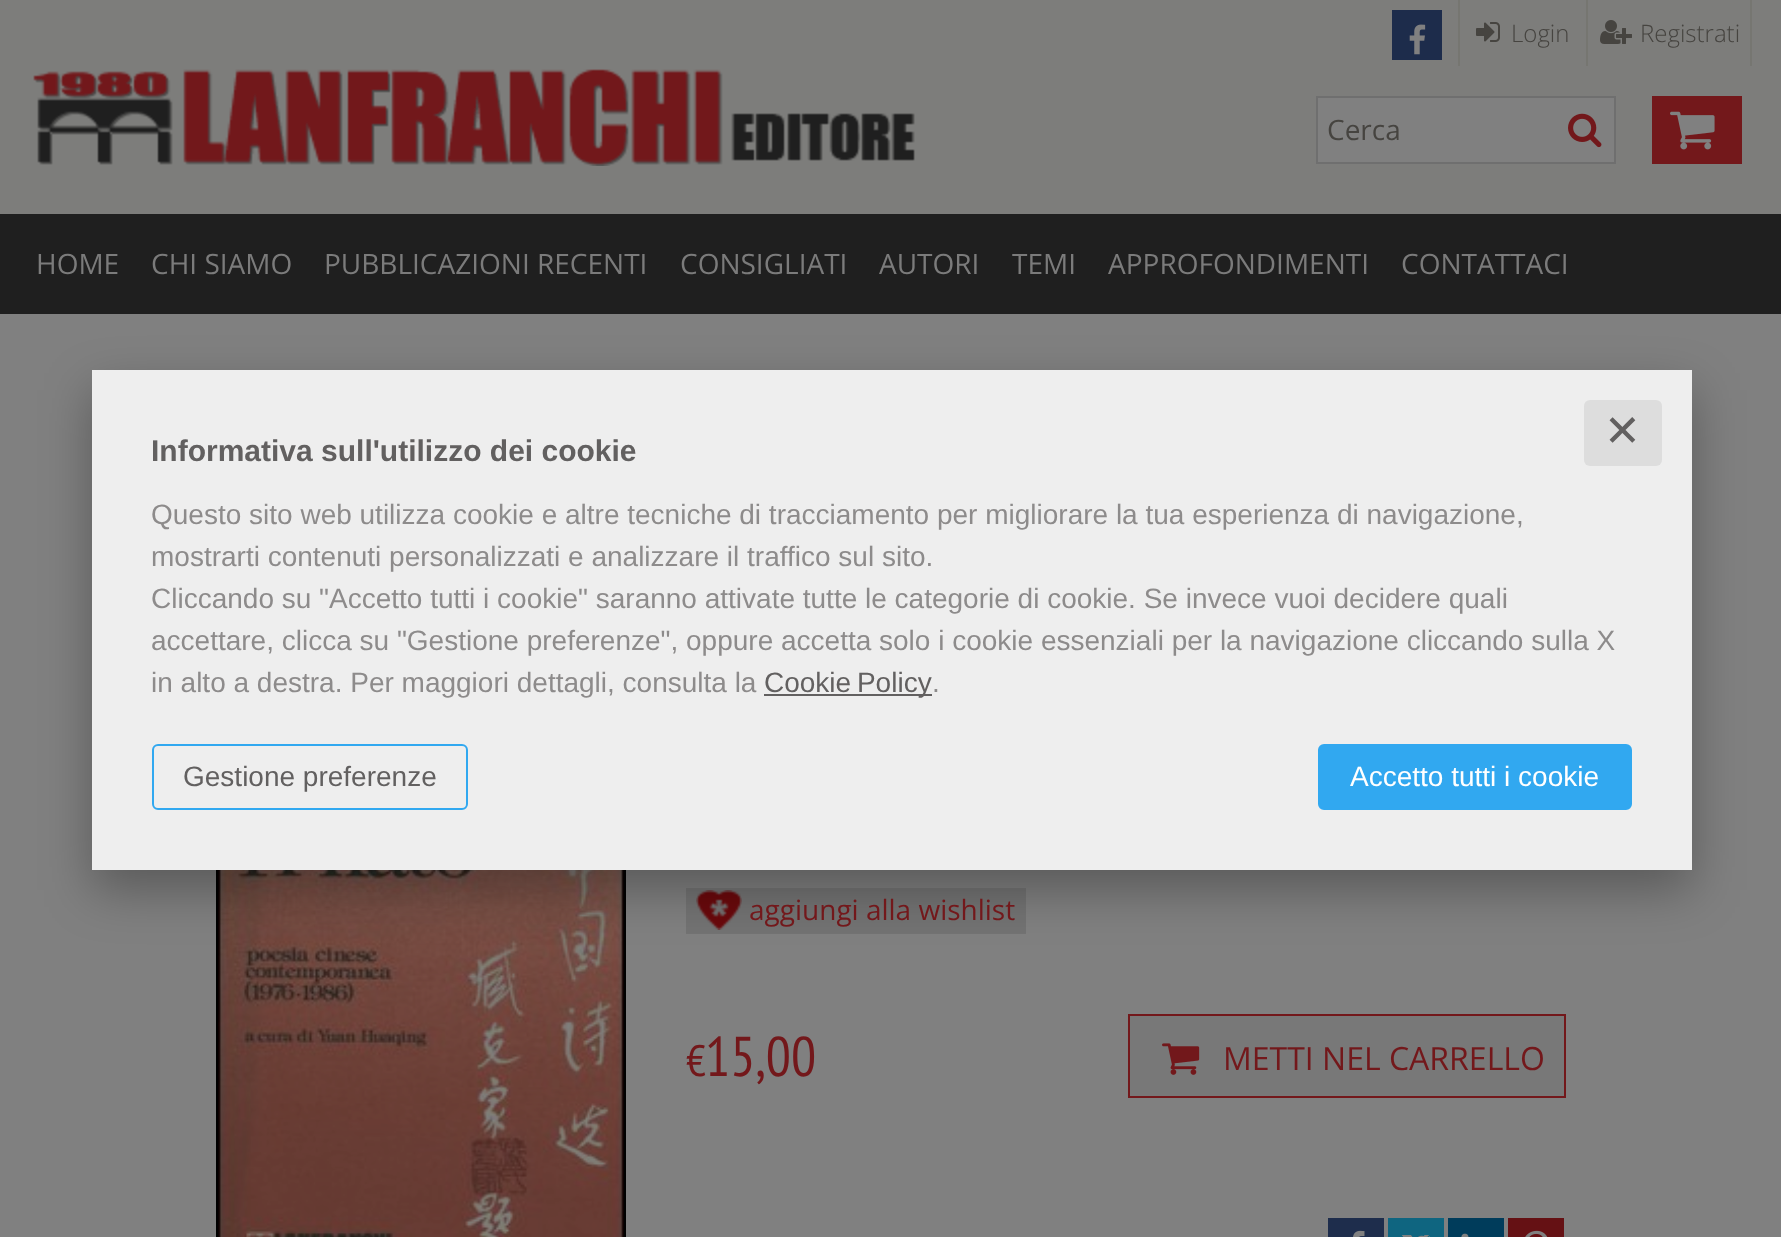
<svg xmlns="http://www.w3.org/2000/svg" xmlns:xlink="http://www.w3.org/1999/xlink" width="1781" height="1237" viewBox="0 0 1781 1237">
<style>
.cls-1{font:300 24px Open Sans;fill:#464440}
.cls-2{font:28px Open Sans;fill:#464440}
.cls-3{font:28px Open Sans;fill:#7b7b7b}
.cls-4{font:28px Open Sans;fill:#73181b}
.cls-5{font:44px PT Sans Narrow;fill:#73181b}
.cls-6{font:56px PT Sans Narrow;fill:#73181b}
.cls-7{font:32px Open Sans;fill:#73181b}
.cls-8{font:44px DejaVu Sans;fill:#626060}
.cls-9{font:bold 30px Liberation Sans;fill:#626060}
.cls-10{font:28px Liberation Sans;fill:#8d8b8b}
.cls-11{font:28px Liberation Sans;fill:#626060}
.cls-12{font:28px Liberation Sans;fill:#ffffff}
</style>
<rect width="100%" height="100%" fill="#808080"/>
<rect fill="#7d7d7b" x="0" y="0" width="1781" height="214"/>
<rect fill="#767671" x="1750" y="0" width="2" height="66"/>
<rect fill="#1d2c4b" x="1392" y="10" width="50" height="50"/>
<image xlink:href="image0.png" x="1409" y="24" width="17" height="31"/>
<rect fill="#767671" x="1458" y="0" width="2" height="66"/>
<image xlink:href="image1.png" x="1476" y="22" width="24" height="20"/>
<rect fill="#767671" x="1586" y="0" width="2" height="66"/>
<image xlink:href="image2.png" x="1600" y="20" width="32" height="24"/>
<image xlink:href="image3.png" x="33" y="69" width="882" height="97"/>
<rect fill="#808080" stroke="#6f6f6f" stroke-width="2" x="1317" y="97" width="298" height="66"/>
<image xlink:href="image4.png" x="1568" y="113" width="34" height="35"/>
<rect fill="#73181b" x="1652" y="96" width="90" height="68"/>
<image xlink:href="image5.png" x="1670" y="111" width="45" height="39"/>
<rect fill="#1f1f1f" x="0" y="214" width="1781" height="100"/>
<rect fill="none" stroke="#000000" stroke-width="2" x="217" y="631" width="408" height="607"/>
<image xlink:href="image6.png" x="218" y="870" width="406" height="367"/>
<rect fill="#737373" x="686" y="888" width="340" height="46"/>
<image xlink:href="image7.png" x="696" y="890" width="46" height="40"/>
<rect fill="#787878" stroke="#73181b" stroke-width="2" x="1129" y="1015" width="436" height="82"/>
<image xlink:href="image8.png" x="1162" y="1043" width="38" height="32"/>
<rect fill="#1e2d4c" x="1328" y="1218" width="56" height="19"/>
<image xlink:href="image9.png" x="1353" y="1230" width="12" height="7"/>
<rect fill="#0f6580" x="1388" y="1218" width="56" height="19"/>
<image xlink:href="image10.png" x="1401" y="1235" width="28" height="2"/>
<image xlink:href="image11.png" x="1418" y="1235" width="12" height="2"/>
<rect fill="#003c5b" x="1448" y="1218" width="56" height="19"/>
<image xlink:href="image12.png" x="1461" y="1233" width="8" height="4"/>
<rect fill="#651114" x="1508" y="1218" width="56" height="19"/>
<image xlink:href="image13.png" x="1525" y="1230" width="23" height="7"/>
<rect fill="#000000" fill-opacity="0.3" filter="blur(25px)" x="92" y="390" width="1600" height="500"/>
<rect fill="#eeeeee" x="92" y="370" width="1600" height="500"/>
<rect fill="#dddddd" x="1584" y="400" width="78" height="66" rx="6"/>
<rect fill="#626060" x="764" y="694" width="168" height="2"/>
<rect fill="none" stroke="#31a8f0" stroke-width="2" x="153" y="745" width="314" height="64" rx="5"/>
<rect fill="#31a8f0" stroke="#31a8f0" stroke-width="2" x="1319" y="745" width="312" height="64" rx="5"/>
<text class="cls-1" x="1511" y="42">Login</text>
<text class="cls-1" x="1640" y="42">Registrati</text>
<text class="cls-2" x="1327" y="140">Cerca</text>
<text class="cls-3" x="36" y="274">HOME</text>
<text class="cls-3" x="151" y="274">CHI SIAMO</text>
<text class="cls-3" x="324" y="274">PUBBLICAZIONI RECENTI</text>
<text class="cls-3" x="680" y="274">CONSIGLIATI</text>
<text class="cls-3" x="879" y="274">AUTORI</text>
<text class="cls-3" x="1012" y="274">TEMI</text>
<text class="cls-3" x="1108" y="274">APPROFONDIMENTI</text>
<text class="cls-3" x="1401" y="274">CONTATTACI</text>
<text class="cls-4" x="749" y="920">aggiungi alla wishlist</text>
<text class="cls-5" x="686" y="1076">€</text>
<text class="cls-6" x="705" y="1076">15,00</text>
<text class="cls-7" x="1223" y="1070">METTI NEL CARRELLO</text>
<text class="cls-8" x="1604" y="446">✕</text>
<text class="cls-9" x="151" y="461">Informativa sull'utilizzo dei cookie</text>
<text class="cls-10"><tspan x="151" y="524">Questo sito web utilizza cookie e altre tecniche di tracciamento per migliorare la tua esperienza di navigazione,</tspan><tspan x="151" y="566">mostrarti contenuti personalizzati e analizzare il traffico sul sito.</tspan><tspan x="151" y="608">Cliccando su "Accetto tutti i cookie" saranno attivate tutte le categorie di cookie. Se invece vuoi decidere quali</tspan><tspan x="151" y="650">accettare, clicca su "Gestione preferenze", oppure accetta solo i cookie essenziali per la navigazione cliccando sulla X</tspan><tspan x="151" y="692">in alto a destra. Per maggiori dettagli, consulta la</tspan></text>
<text class="cls-11" x="764" y="692" word-spacing="-2">Cookie Policy</text>
<text class="cls-10" x="932" y="692">.</text>
<text class="cls-11" x="183" y="786">Gestione preferenze</text>
<text class="cls-12" x="1350" y="786">Accetto tutti i cookie</text>
</svg>
